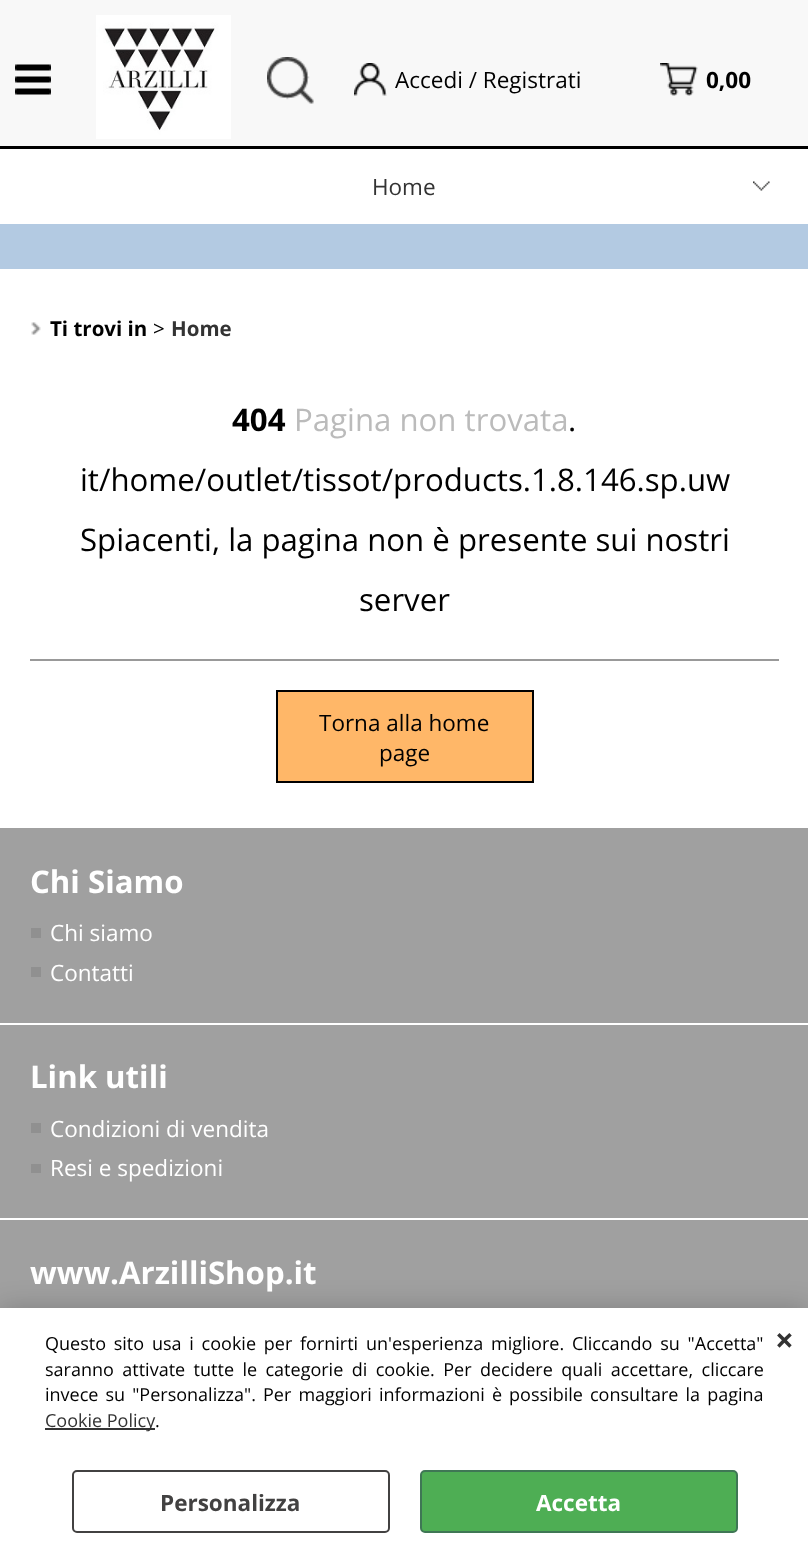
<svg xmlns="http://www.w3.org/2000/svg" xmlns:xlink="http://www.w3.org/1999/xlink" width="808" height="1548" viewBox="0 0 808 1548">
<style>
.cls-1{font:22.5px Open Sans;fill:#000000}
.cls-2{font:bold 22.5px Open Sans;fill:#000000}
.cls-3{font:22.5px Open Sans;fill:#333333}
.cls-4{font:bold 20.5px Open Sans;fill:#000000}
.cls-5{font:20.5px Open Sans;fill:#000000}
.cls-6{font:bold 20.5px Open Sans;fill:#333333}
.cls-7{font:bold 31.2px Open Sans;fill:#000000}
.cls-8{font:31.2px Open Sans;fill:#bbbbbb}
.cls-9{font:31.2px Open Sans;fill:#000000}
.cls-10{font:bold 31.2px Open Sans;fill:#ffffff}
.cls-11{font:22.5px Open Sans;fill:#ffffff}
.cls-12{font:18px Open Sans;fill:#000000}
.cls-13{font:18px Open Sans;fill:#333333}
.cls-14{font:bold 33px Open Sans;fill:#333333}
.cls-15{font:bold 22.5px Open Sans;fill:#424141}
.cls-16{font:bold 22.5px Open Sans;fill:#ffffff}
</style>
<rect width="100%" height="100%" fill="#ffffff"/>
<rect fill="#f8f8f8" x="0" y="0" width="808" height="146"/>
<rect fill="#000000" x="0" y="146" width="808" height="3"/>
<image xlink:href="image0.png" x="15" y="64" width="36" height="31"/>
<image xlink:href="image1.png" x="96" y="15" width="135" height="124"/>
<image xlink:href="image2.png" x="267" y="57" width="47" height="47"/>
<image xlink:href="image3.png" x="354" y="63" width="33" height="33"/>
<image xlink:href="image4.png" x="660" y="63" width="38" height="33"/>
<rect fill="#b3cae2" x="0" y="224" width="808" height="45"/>
<image xlink:href="image5.png" x="753" y="181" width="17" height="10"/>
<image xlink:href="image6.png" x="31" y="322" width="10" height="13"/>
<rect fill="#999999" x="30" y="659" width="749" height="2"/>
<rect fill="#ffb768" stroke="#000000" stroke-width="2" x="277" y="691" width="256" height="91"/>
<rect fill="#a0a0a0" x="0" y="828" width="808" height="480"/>
<rect fill="#ffffff" x="0" y="1023" width="808" height="2"/>
<rect fill="#909090" x="31" y="928" width="10" height="10"/>
<rect fill="#909090" x="31" y="967" width="10" height="10"/>
<rect fill="#ffffff" x="0" y="1218" width="808" height="2"/>
<rect fill="#909090" x="31" y="1123" width="10" height="10"/>
<rect fill="#909090" x="31" y="1164" width="10" height="9"/>
<rect fill="#000000" fill-opacity="0.2" filter="blur(13.5px)" x="0" y="1308" width="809" height="240"/>
<rect fill="#ffffff" x="0" y="1308" width="808" height="240"/>
<rect fill="#343434" x="45" y="1428" width="110" height="2"/>
<rect fill="none" stroke="#424141" stroke-width="2" x="73" y="1471" width="316" height="61" rx="4"/>
<rect fill="#4eae54" stroke="#3f7755" stroke-width="2" x="421" y="1471" width="316" height="61" rx="4"/>
<text class="cls-1" x="395" y="88">Accedi / Registrati</text>
<text class="cls-2" x="706" y="88">0,00</text>
<text class="cls-3" x="372" y="195">Home</text>
<text class="cls-4" x="50" y="336">Ti trovi in</text>
<text class="cls-5" x="153" y="336">&gt;</text>
<text class="cls-6" x="171" y="336">Home</text>
<text class="cls-7" x="232" y="431">404</text>
<text class="cls-8" x="294" y="431">Pagina non trovata</text>
<text class="cls-9" x="568" y="431">.</text>
<text class="cls-9"><tspan x="80" y="491">it/home/outlet/tissot/products.1.8.146.sp.uw</tspan><tspan x="80" y="551">Spiacenti, la pagina non è presente sui nostri</tspan></text>
<text class="cls-9" x="359" y="611">server</text>
<text class="cls-1" x="319" y="731">Torna alla home</text>
<text class="cls-1" x="379" y="761">page</text>
<text class="cls-10" x="30" y="893">Chi Siamo</text>
<text class="cls-11"><tspan x="50" y="941">Chi siamo</tspan><tspan x="50" y="981">Contatti</tspan></text>
<text class="cls-10" x="30" y="1088">Link utili</text>
<text class="cls-11"><tspan x="50" y="1137">Condizioni di vendita</tspan><tspan x="50" y="1176">Resi e spedizioni</tspan></text>
<text class="cls-10" x="30" y="1284">www.ArzilliShop.it</text>
<text class="cls-12"><tspan x="45" y="1350" word-spacing="3.1">Questo sito usa i cookie per fornirti un'esperienza migliore. Cliccando su "Accetta"</tspan><tspan x="45" y="1376" word-spacing="3.75">saranno attivate tutte le categorie di cookie. Per decidere quali accettare, cliccare</tspan><tspan x="45" y="1401" word-spacing="2.4">invece su "Personalizza". Per maggiori informazioni è possibile consultare la pagina</tspan></text>
<text class="cls-13" x="45" y="1427">Cookie Policy</text>
<text class="cls-12" x="155" y="1427">.</text>
<text class="cls-14" x="775" y="1352">×</text>
<text class="cls-15" x="160" y="1511">Personalizza</text>
<text class="cls-16" x="536" y="1511">Accetta</text>
</svg>
